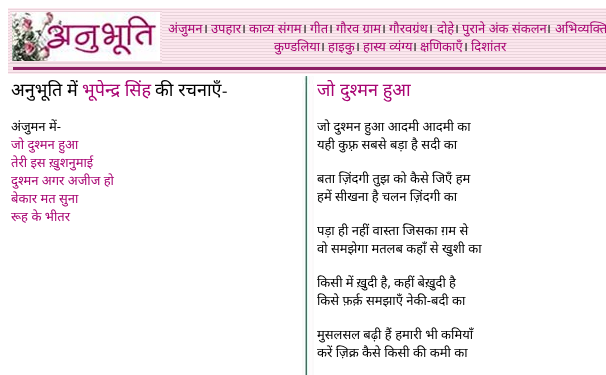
<svg xmlns="http://www.w3.org/2000/svg" xmlns:xlink="http://www.w3.org/1999/xlink" width="606" height="375" viewBox="0 0 606 375">
<style>
.cls-1{font:13px Noto Sans;fill:#a80472}
.cls-2{font:13px Noto Sans;fill:#000000}
.cls-3{font:18px Noto Sans;fill:#000000}
.cls-4{font:18px Noto Sans;fill:#a80472}
.cls-5{font:16px Liberation Serif;fill:#000000}
</style>
<rect width="100%" height="100%" fill="#ffffff"/>
<image xlink:href="image0.png" x="8" y="8" width="598" height="66"/>
<image xlink:href="image1.png" x="10" y="11" width="152" height="52"/>
<image xlink:href="image2.png" x="12" y="12" width="148" height="49"/>
<rect fill="#8d2064" x="13" y="67" width="593" height="3"/>
<image xlink:href="image3.png" x="302" y="76" width="12" height="299"/>
<text class="cls-1" x="168" y="33">अंजुमन</text>
<text class="cls-2" x="203" y="33">।</text>
<text class="cls-1" x="211" y="33">उपहार</text>
<text class="cls-2" x="241" y="33">।</text>
<text class="cls-1" x="249" y="33">काव्य संगम</text>
<text class="cls-2" x="302" y="33">।</text>
<text class="cls-1" x="310" y="33">गीत</text>
<text class="cls-2" x="328" y="33">।</text>
<text class="cls-1" x="336" y="33">गौरव ग्राम</text>
<text class="cls-2" x="381" y="33">।</text>
<text class="cls-1" x="389" y="33">गौरवग्रंथ</text>
<text class="cls-2" x="428" y="33">।</text>
<text class="cls-1" x="437" y="33">दोहे</text>
<text class="cls-1" x="555" y="33">अभिव्यक्ति</text>
<text class="cls-2" x="454" y="33">।</text>
<text class="cls-1" x="462" y="33">पुराने अंक संकलन</text>
<text class="cls-2" x="546" y="33">।</text>
<text class="cls-1" x="274" y="51">कुण्डलिया</text>
<text class="cls-2" x="320" y="51">।</text>
<text class="cls-1" x="328" y="51">हाइकु</text>
<text class="cls-2" x="355" y="51">।</text>
<text class="cls-1" x="363" y="51">हास्य व्यंग्य</text>
<text class="cls-2" x="412" y="51">।</text>
<text class="cls-1" x="420" y="51">क्षणिकाएँ</text>
<text class="cls-2" x="463" y="51">।</text>
<text class="cls-1" x="471" y="51">दिशांतर</text>
<text class="cls-3" x="11" y="96">अनुभूति में</text>
<text class="cls-4" x="82" y="96">भूपेन्द्र सिंह</text>
<text class="cls-3" x="155" y="96">की रचनाएँ</text>
<text class="cls-5" x="222" y="96">-</text>
<text class="cls-2" x="11" y="131">अंजुमन में-</text>
<text class="cls-1"><tspan x="11" y="149">जो दुश्मन हुआ</tspan><tspan x="11" y="167">तेरी इस ख़ुशनुमाई</tspan><tspan x="11" y="185">दुश्मन अगर अजीज हो</tspan><tspan x="11" y="203">बेकार मत सुना</tspan><tspan x="11" y="221">रूह के भीतर</tspan></text>
<text class="cls-4" x="317" y="96">जो</text>
<text class="cls-4" x="340" y="96">दुश्मन हुआ</text>
<text class="cls-2"><tspan x="317" y="131">जो दुश्मन हुआ आदमी आदमी का</tspan><tspan x="317" y="149">यही कुफ़्र सबसे बड़ा है सदी का</tspan></text>
<text class="cls-2"><tspan x="317" y="183">बता ज़िंदगी तुझ को कैसे जिएँ हम</tspan><tspan x="317" y="201">हमें सीखना है चलन ज़िंदगी का</tspan></text>
<text class="cls-2"><tspan x="317" y="235">पड़ा ही नहीं वास्ता जिसका ग़म से</tspan><tspan x="317" y="253">वो समझेगा मतलब कहाँ से खुशी का</tspan></text>
<text class="cls-2"><tspan x="317" y="287" word-spacing="-0.25">किसी में ख़ुदी है, कहीं बेख़ुदी है</tspan><tspan x="317" y="305">किसे फ़र्क़ समझाएँ नेकी-बदी का</tspan></text>
<text class="cls-2"><tspan x="317" y="339">मुसलसल बढ़ी हैं हमारी भी कमियाँ</tspan><tspan x="317" y="357">करें ज़िक्र कैसे किसी की कमी का</tspan></text>
</svg>
